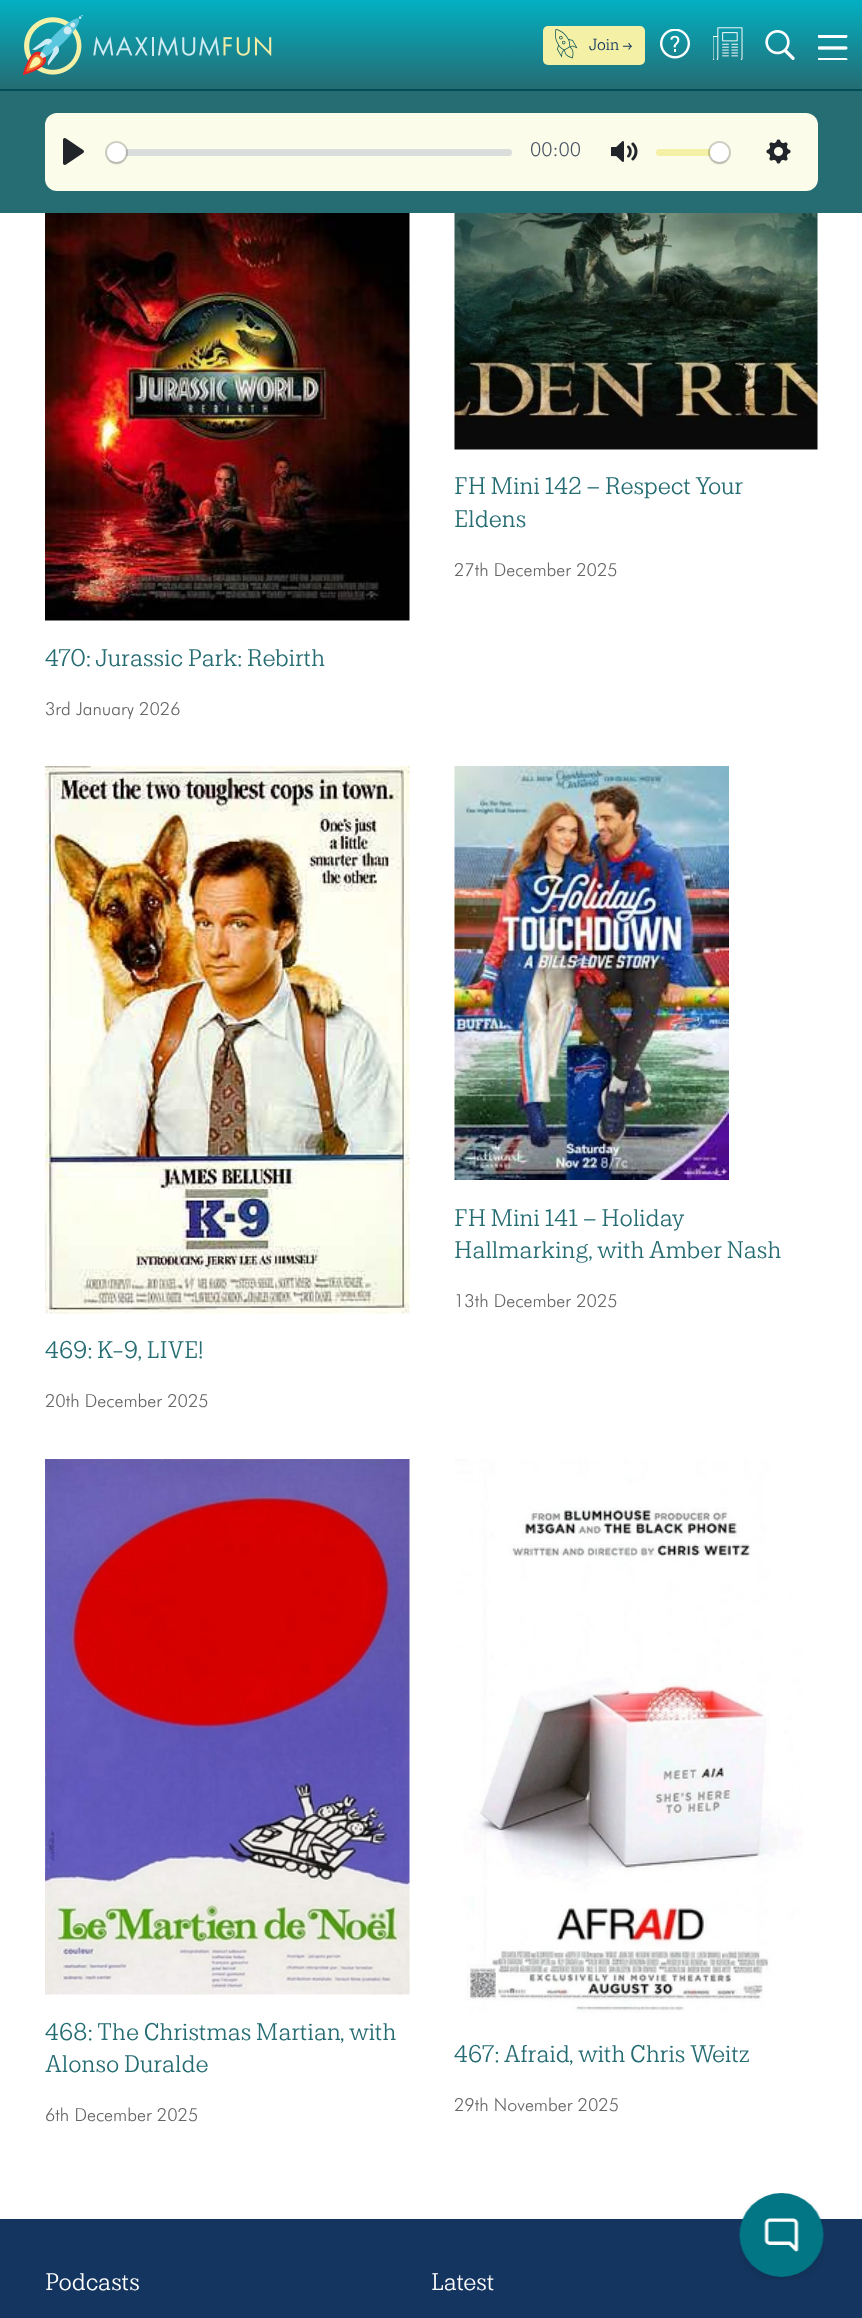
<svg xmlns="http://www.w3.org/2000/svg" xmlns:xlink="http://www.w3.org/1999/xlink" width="862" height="2318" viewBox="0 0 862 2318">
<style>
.cls-1{font:18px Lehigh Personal;fill:#14355f}
.cls-2{font:300 19.5px Futura;fill:#4a5464}
.cls-3{font:27px Lehigh Personal;fill:#256c73}
.cls-4{font:300 18px Futura;fill:#666666}
.cls-5{font:27px Lehigh Personal;fill:#ffffff}
</style>
<defs>
<linearGradient id="g1" gradientUnits="userSpaceOnUse" x1="431" y1="0" x2="431" y2="89"><stop offset="0" stop-color="#02b0c2"/><stop offset="1" stop-color="#256c73"/></linearGradient>
</defs>
<rect width="100%" height="100%" fill="#14355f"/>
<rect fill="url(#g1)" x="0" y="0" width="862" height="89"/>
<rect fill="#014d55" x="0" y="89" width="862" height="2"/>
<image xlink:href="image0.png" x="23" y="15" width="249" height="60"/>
<rect fill="#f4f1a6" x="543" y="26" width="102" height="39" rx="5"/>
<image xlink:href="image1.png" x="555" y="29" width="23" height="30"/>
<image xlink:href="image2.png" x="660" y="29" width="30" height="30"/>
<image xlink:href="image3.png" x="713" y="27" width="30" height="33"/>
<image xlink:href="image4.png" x="765" y="30" width="30" height="30"/>
<image xlink:href="image5.png" x="818" y="35" width="30" height="25"/>
<rect fill="#256c73" x="0" y="91" width="862" height="122"/>
<rect fill="#fcfceb" x="45" y="113" width="773" height="78" rx="12"/>
<image xlink:href="image6.png" x="63" y="138" width="21" height="27"/>
<rect fill="#c1c8d1" fill-opacity="0.6" x="107" y="149" width="405" height="7" rx="3.5"/>
<circle fill="none" stroke="#23282f" stroke-opacity="0.2" stroke-width="2" cx="116.5" cy="152.5" r="10.5"/>
<rect fill="#23282f" fill-opacity="0.15" filter="blur(1px)" x="107" y="144" width="19" height="20" rx="9.5"/>
<circle fill="#ffffff" cx="116.5" cy="152.5" r="9.5"/>
<image xlink:href="image7.png" x="611" y="141" width="27" height="21"/>
<rect fill="#f4f1a6" x="656" y="149" width="73" height="7" rx="3.5"/>
<circle fill="none" stroke="#23282f" stroke-opacity="0.2" stroke-width="2" cx="719.5" cy="152.5" r="10.5"/>
<rect fill="#23282f" fill-opacity="0.15" filter="blur(1px)" x="710" y="144" width="19" height="20" rx="9.5"/>
<circle fill="#ffffff" cx="719.5" cy="152.5" r="9.5"/>
<image xlink:href="image8.png" x="766" y="139" width="25" height="25"/>
<rect fill="#ffffff" x="0" y="213" width="862" height="2006"/>
<image xlink:href="image9.png" x="454" y="213" width="364" height="237"/>
<image xlink:href="image10.png" x="45" y="213" width="365" height="408"/>
<image xlink:href="image11.png" x="454" y="766" width="275" height="414"/>
<image xlink:href="image12.png" x="45" y="766" width="365" height="548"/>
<image xlink:href="image13.png" x="45" y="1459" width="365" height="536"/>
<image xlink:href="image14.png" x="455" y="1459" width="348" height="554"/>
<image xlink:href="image15.png" x="739" y="2193" width="85" height="87"/>
<text class="cls-1" x="589" y="50">Join →</text>
<text class="cls-2" x="530" y="156">00:00</text>
<text class="cls-3"><tspan x="454" y="494">FH Mini 142 – Respect Your</tspan><tspan x="454" y="527">Eldens</tspan></text>
<text class="cls-4" x="454" y="576">27th December 2025</text>
<text class="cls-3" x="45" y="666">470: Jurassic Park: Rebirth</text>
<text class="cls-4" x="45" y="715">3rd January 2026</text>
<text class="cls-3"><tspan x="454" y="1226">FH Mini 141 – Holiday</tspan><tspan x="454" y="1258">Hallmarking, with Amber Nash</tspan></text>
<text class="cls-4" x="454" y="1307">13th December 2025</text>
<text class="cls-3" x="45" y="1358">469: K-9, LIVE!</text>
<text class="cls-4" x="45" y="1407">20th December 2025</text>
<text class="cls-3"><tspan x="45" y="2040">468: The Christmas Martian, with</tspan><tspan x="45" y="2072">Alonso Duralde</tspan></text>
<text class="cls-4" x="45" y="2121">6th December 2025</text>
<text class="cls-3" x="454" y="2062">467: Afraid, with Chris Weitz</text>
<text class="cls-4" x="454" y="2111">29th November 2025</text>
<text class="cls-5" x="45" y="2290">Podcasts</text>
<text class="cls-5" x="431" y="2290">Latest</text>
</svg>
